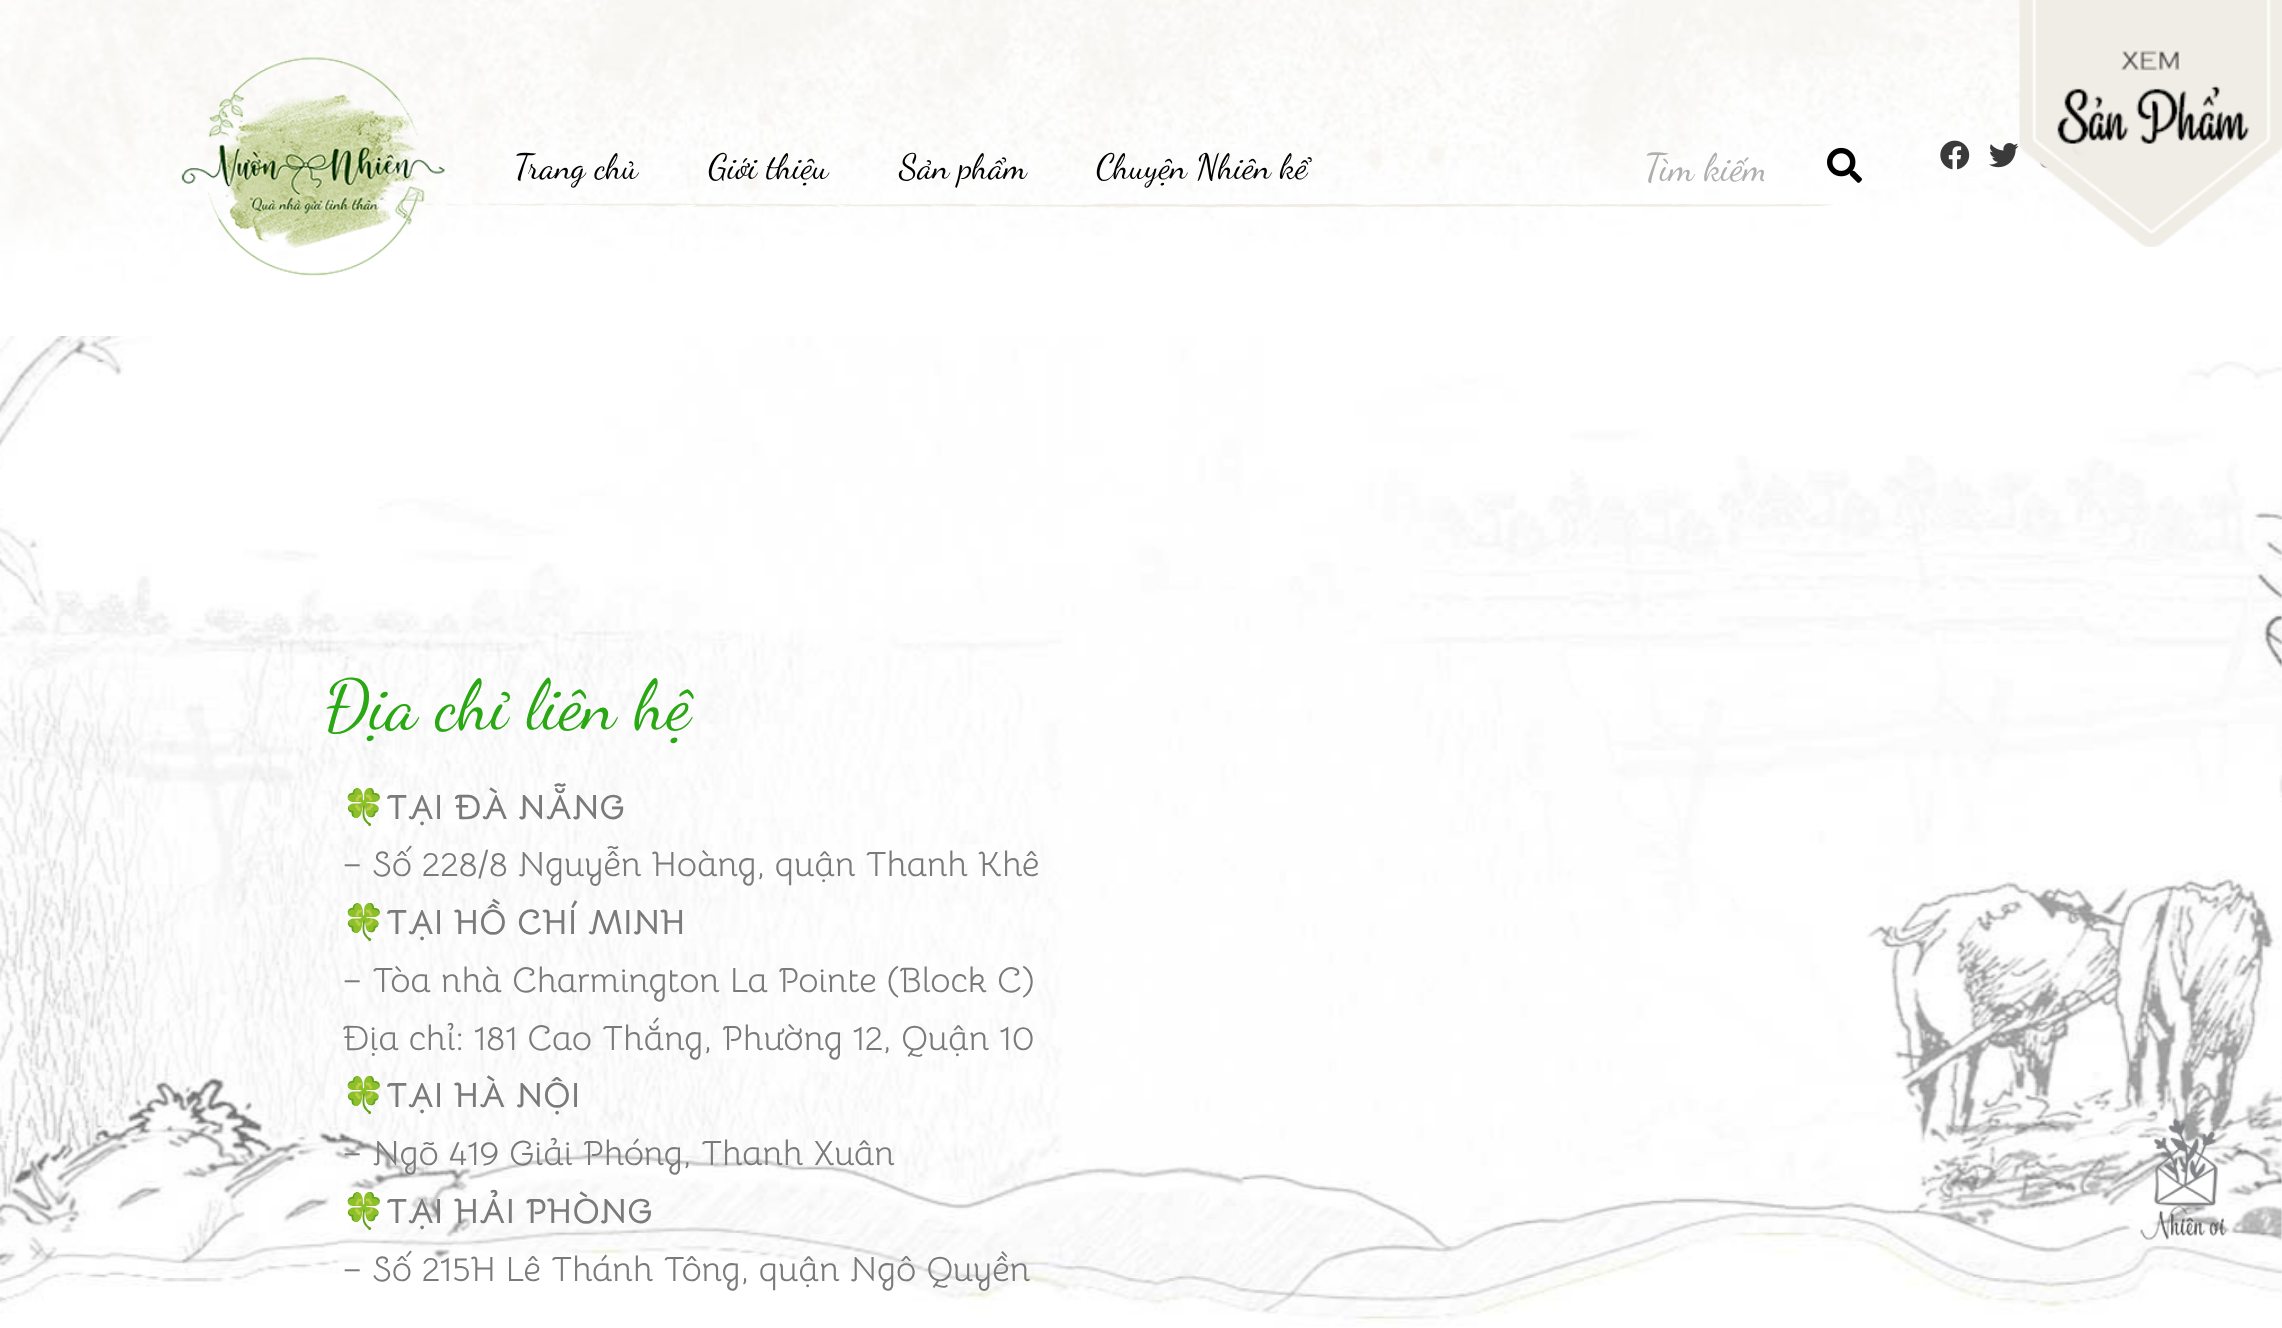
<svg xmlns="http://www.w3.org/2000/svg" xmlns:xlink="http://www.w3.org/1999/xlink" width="2282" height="1328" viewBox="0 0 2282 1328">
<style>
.cls-1{font:35px Dancing Script;fill:#000000}
.cls-2{font:38.5px Dancing Script;fill:#afafaf}
.cls-3{font:70px Dancing Script;fill:#2aa813}
.cls-4{font:bold 35px Noto Color Emoji;fill:#7a7a7a}
.cls-5{font:bold 35px Bellota;fill:#7a7a7a}
.cls-6{font:35px Bellota;fill:#7a7a7a}
</style>
<defs>
<clipPath id="clip1"><rect x="1645" y="145" width="119" height="46"/></clipPath>
</defs>
<rect width="100%" height="100%" fill="#f5f5f5"/>
<image xlink:href="image0.png" x="0" y="336" width="2282" height="992"/>
<image xlink:href="image1.png" x="0" y="0" width="2282" height="336"/>
<image xlink:href="image2.png" x="270" y="203" width="1571" height="5"/>
<image xlink:href="image3.png" x="181" y="57" width="264" height="219"/>
<image xlink:href="image4.png" x="1827" y="147" width="35" height="36"/>
<image xlink:href="image5.png" x="1940" y="140" width="30" height="30"/>
<image xlink:href="image6.png" x="1989" y="143" width="30" height="25"/>
<image xlink:href="image7.png" x="2039" y="160" width="9" height="8"/>
<image xlink:href="image8.png" x="2019" y="0" width="263" height="247"/>
<image xlink:href="image9.png" x="2140" y="1118" width="87" height="122"/>
<text class="cls-1" x="514" y="178">Trang chủ</text>
<text class="cls-1" x="708" y="178">Giới thiệu</text>
<text class="cls-1" x="899" y="178">Sản phẩm</text>
<text class="cls-1" x="1096" y="178">Chuyện Nhiên kể</text>
<g clip-path="url(#clip1)">
<text class="cls-2" x="1644" y="180">Tìm kiếm</text>
</g>
<text class="cls-3" x="324" y="728">Địa chỉ liên hệ</text>
<text class="cls-4" x="342" y="819">🍀</text>
<text class="cls-5" x="386" y="819">TẠI ĐÀ NẴNG</text>
<text class="cls-6" x="342" y="876">– Số 228/8 Nguyễn Hoàng, quận Thanh Khê</text>
<text class="cls-4" x="342" y="934">🍀</text>
<text class="cls-5" x="386" y="934">TẠI HỒ CHÍ MINH</text>
<text class="cls-6"><tspan x="342" y="992">– Tòa nhà Charmington La Pointe (Block C)</tspan><tspan x="342" y="1050">Địa chỉ: 181 Cao Thắng, Phường 12, Quận 10</tspan></text>
<text class="cls-4" x="342" y="1107">🍀</text>
<text class="cls-5" x="386" y="1107">TẠI HÀ NỘI</text>
<text class="cls-6" x="342" y="1165">– Ngõ 419 Giải Phóng, Thanh Xuân</text>
<text class="cls-4" x="342" y="1223">🍀</text>
<text class="cls-5" x="386" y="1223">TẠI HẢI PHÒNG</text>
<text class="cls-6" x="342" y="1281">– Số 215H Lê Thánh Tông, quận Ngô Quyền</text>
</svg>
